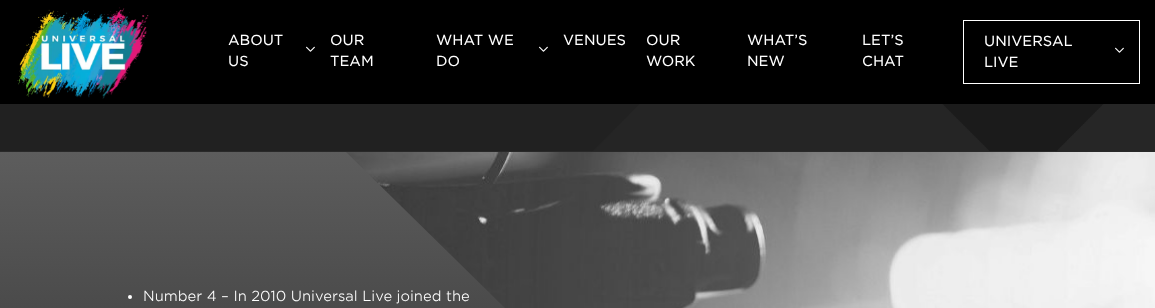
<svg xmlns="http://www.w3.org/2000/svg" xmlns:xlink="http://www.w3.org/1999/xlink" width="1155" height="308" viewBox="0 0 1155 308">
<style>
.cls-1{font:300 14px 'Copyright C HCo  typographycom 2';fill:#ffffff}
.cls-2{font:300 14px 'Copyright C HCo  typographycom';fill:#ffffff}
</style>
<defs>
<linearGradient id="g1" gradientUnits="userSpaceOnUse" x1="578" y1="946" x2="578" y2="152"><stop offset="0" stop-color="#000000"/><stop offset="1" stop-color="#5d5d5d"/></linearGradient>
</defs>
<rect width="100%" height="100%" fill="#ffffff"/>
<rect fill="#000000" x="0" y="0" width="1155" height="104"/>
<image xlink:href="image0.png" x="17" y="7" width="132" height="92"/>
<image xlink:href="image1.png" x="306" y="46" width="9" height="6"/>
<image xlink:href="image1.png" x="539" y="46" width="9" height="6"/>
<rect fill="none" stroke="#ffffff" x="963.5" y="20.5" width="176" height="63"/>
<image xlink:href="image1.png" x="1115" y="47" width="9" height="6"/>
<image xlink:href="image2.png" x="0" y="104" width="1155" height="48"/>
<image xlink:href="image3.png" x="346" y="152" width="809" height="156"/>
<path fill="url(#g1)" d="M0 152V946H1155L346 152Z"/>
<circle fill="#ffffff" cx="130" cy="297" r="2"/>
<text class="cls-1"><tspan x="228" y="45">ABOUT</tspan><tspan x="228" y="66">US</tspan></text>
<text class="cls-1"><tspan x="330" y="45">OUR</tspan><tspan x="330" y="66">TEAM</tspan></text>
<text class="cls-1"><tspan x="436" y="45">WHAT WE</tspan><tspan x="436" y="66">DO</tspan></text>
<text class="cls-1" x="563" y="45">VENUES</text>
<text class="cls-1"><tspan x="646" y="45">OUR</tspan><tspan x="646" y="66">WORK</tspan></text>
<text class="cls-1"><tspan x="747" y="45">WHAT’S</tspan><tspan x="747" y="66">NEW</tspan></text>
<text class="cls-1"><tspan x="862" y="45">LET’S</tspan><tspan x="862" y="66">CHAT</tspan></text>
<text class="cls-1"><tspan x="984" y="46">UNIVERSAL</tspan><tspan x="984" y="67">LIVE</tspan></text>
<text class="cls-2" x="143" y="301">Number 4 – In 2010 Universal Live joined the</text>
</svg>
